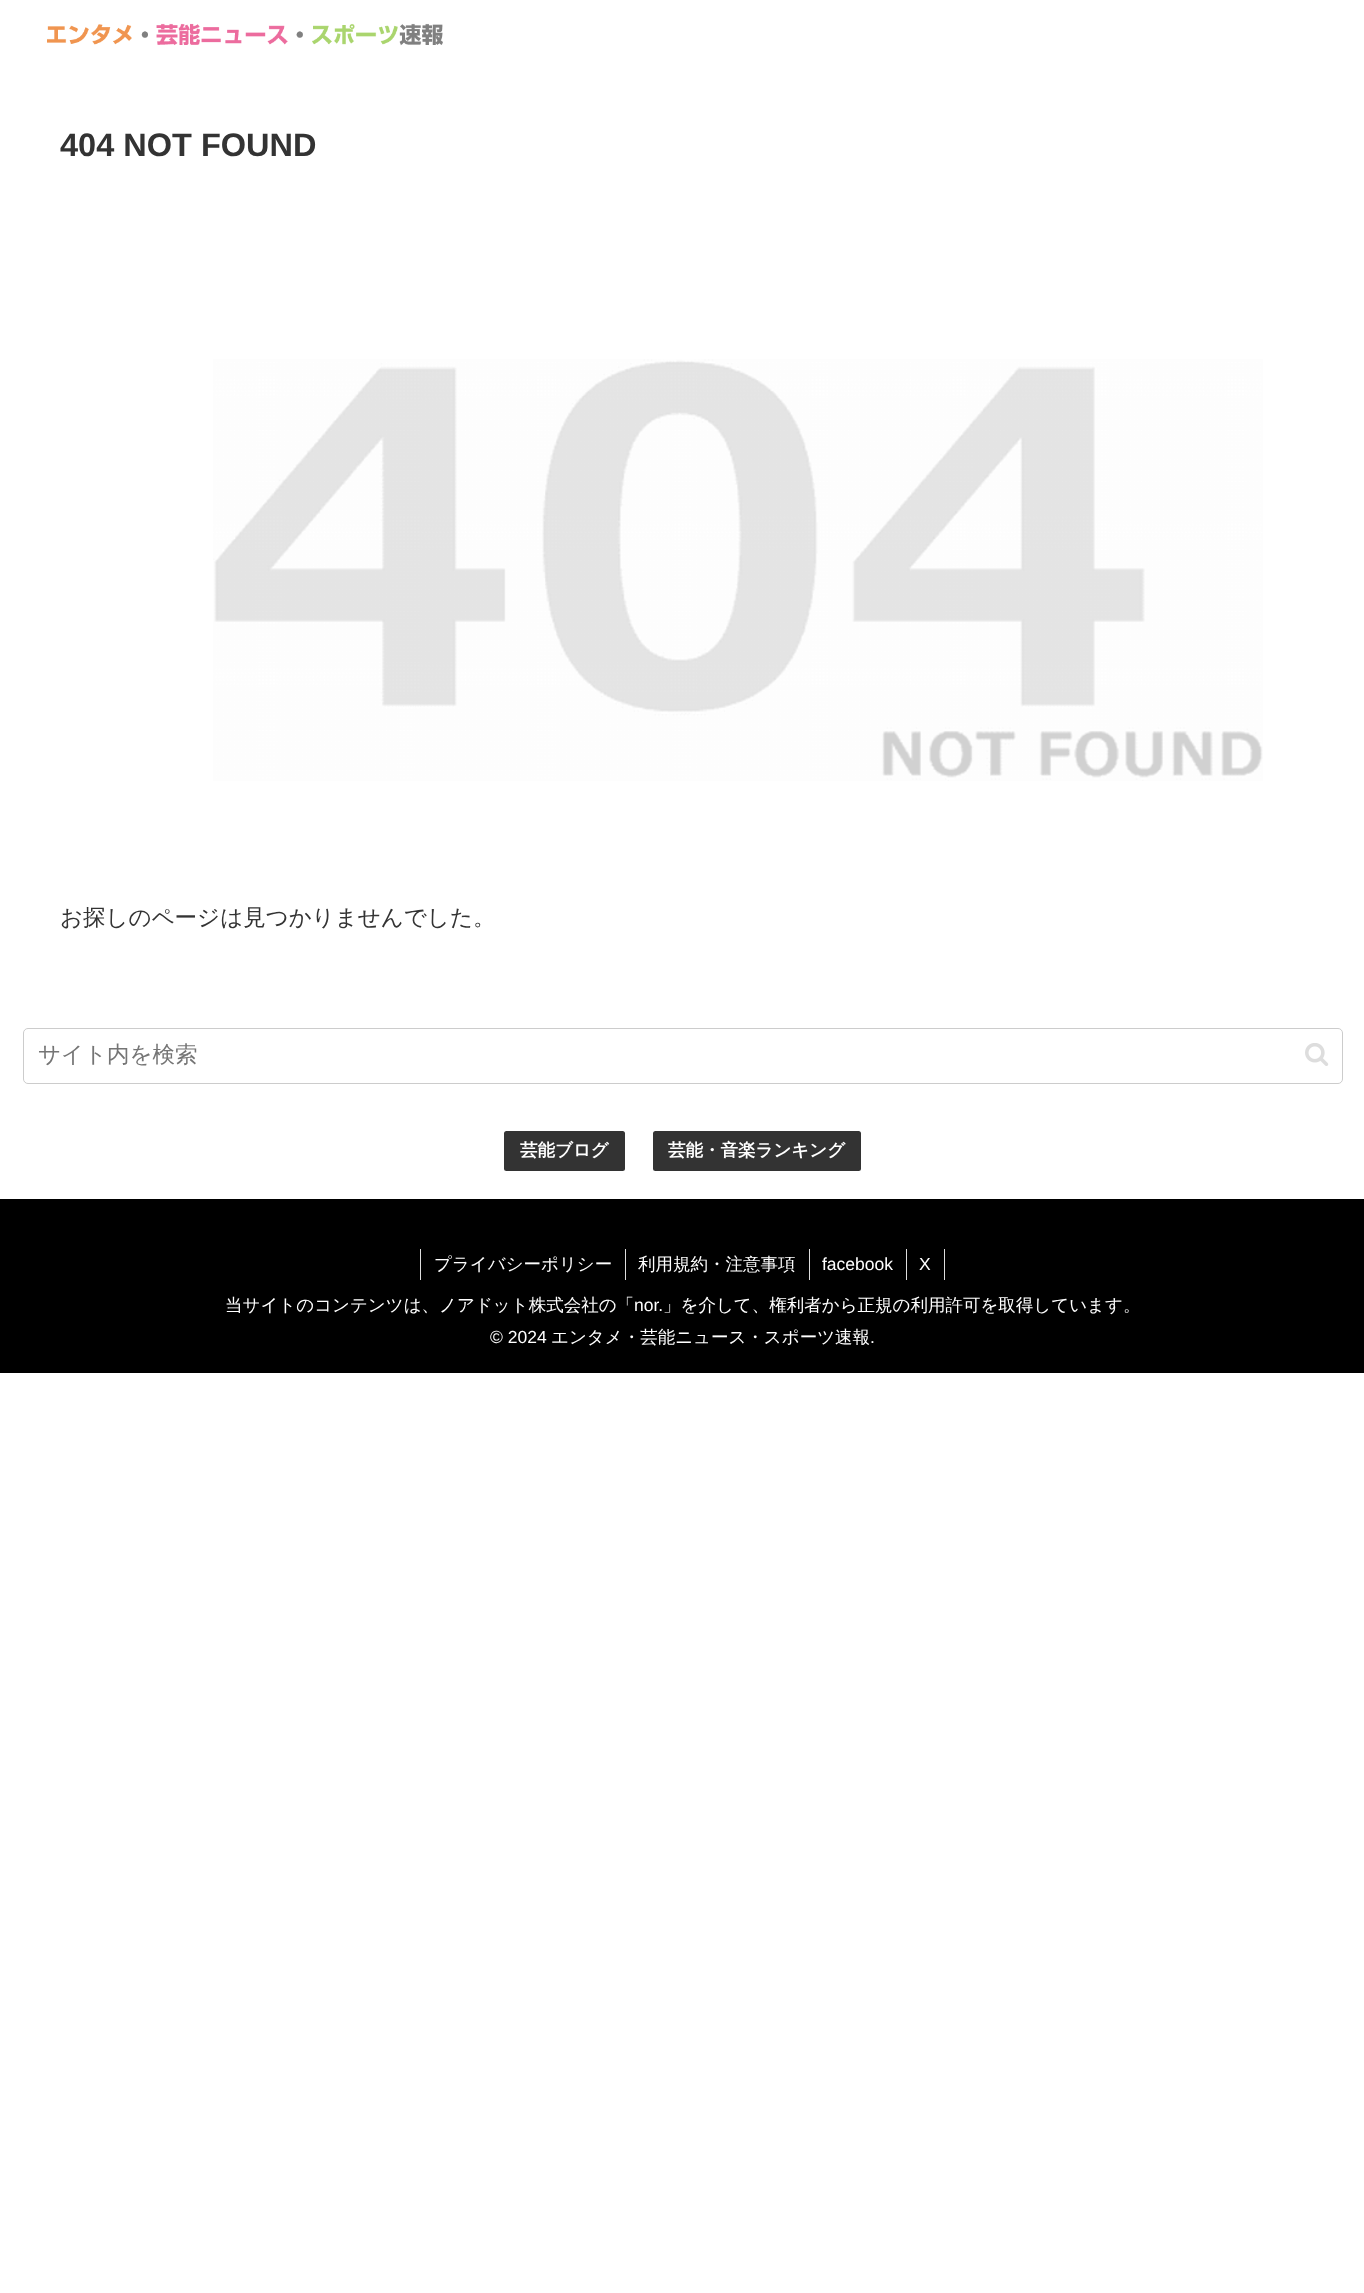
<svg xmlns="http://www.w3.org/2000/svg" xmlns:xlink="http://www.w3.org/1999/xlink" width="1364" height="2293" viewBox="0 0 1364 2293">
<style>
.cls-1{font:bold 32.5px Liberation Sans;fill:#333333}
.cls-2{font:500 22.5px WenQuanYi Zen Hei;fill:#333333}
.cls-3{font:500 22.5px WenQuanYi Zen Hei;fill:#757575}
.cls-4{font:bold 17.5px WenQuanYi Zen Hei;fill:#ffffff}
.cls-5{font:500 17.5px WenQuanYi Zen Hei;fill:#ffffff}
.cls-6{font:17.5px Liberation Sans;fill:#ffffff}
</style>
<rect width="100%" height="100%" fill="#ffffff"/>
<image xlink:href="image0.png" x="47" y="23" width="396" height="23"/>
<image xlink:href="image1.png" x="213" y="359" width="1050" height="422"/>
<rect fill="none" stroke="#cccccc" x="23.5" y="1028.5" width="1319" height="55" rx="4.5"/>
<image xlink:href="image2.png" x="1305" y="1043" width="24" height="23"/>
<rect fill="#333333" x="504" y="1131" width="121" height="40" rx="2.5"/>
<rect fill="#333333" x="653" y="1131" width="208" height="40" rx="2.5"/>
<rect fill="#000000" x="0" y="1199" width="1364" height="174"/>
<rect fill="#dddddd" x="420" y="1249" width="1" height="31"/>
<rect fill="#dddddd" x="625" y="1249" width="1" height="31"/>
<rect fill="#dddddd" x="809" y="1249" width="1" height="31"/>
<rect fill="#dddddd" x="944" y="1249" width="1" height="31"/>
<rect fill="#dddddd" x="906" y="1249" width="1" height="31"/>
<text class="cls-1" x="60" y="156">404 NOT FOUND</text>
<text class="cls-2" x="60" y="925">お探しのページは見つかりませんでした。</text>
<text class="cls-3" x="38" y="1062">サイト内を検索</text>
<text class="cls-4" x="520" y="1156">芸能ブログ</text>
<text class="cls-4" x="668" y="1156">芸能・音楽ランキング</text>
<text class="cls-5" x="434" y="1270">プライバシーポリシー</text>
<text class="cls-5" x="638" y="1270">利用規約・注意事項</text>
<text class="cls-6" x="822" y="1270">facebook</text>
<text class="cls-6" x="919" y="1270">X</text>
<text class="cls-5" x="225" y="1311">当サイトのコンテンツは、ノアドット株式会社の「</text>
<text class="cls-6" x="634" y="1311">nor.</text>
<text class="cls-5" x="663" y="1311">」を介して、権利者から正規の利用許可を取得しています。</text>
<text class="cls-6" x="490" y="1343">© 2024</text>
<text class="cls-5" x="551" y="1343">エンタメ・芸能ニュース・スポーツ速報</text>
<text class="cls-6" x="870" y="1343">.</text>
</svg>
